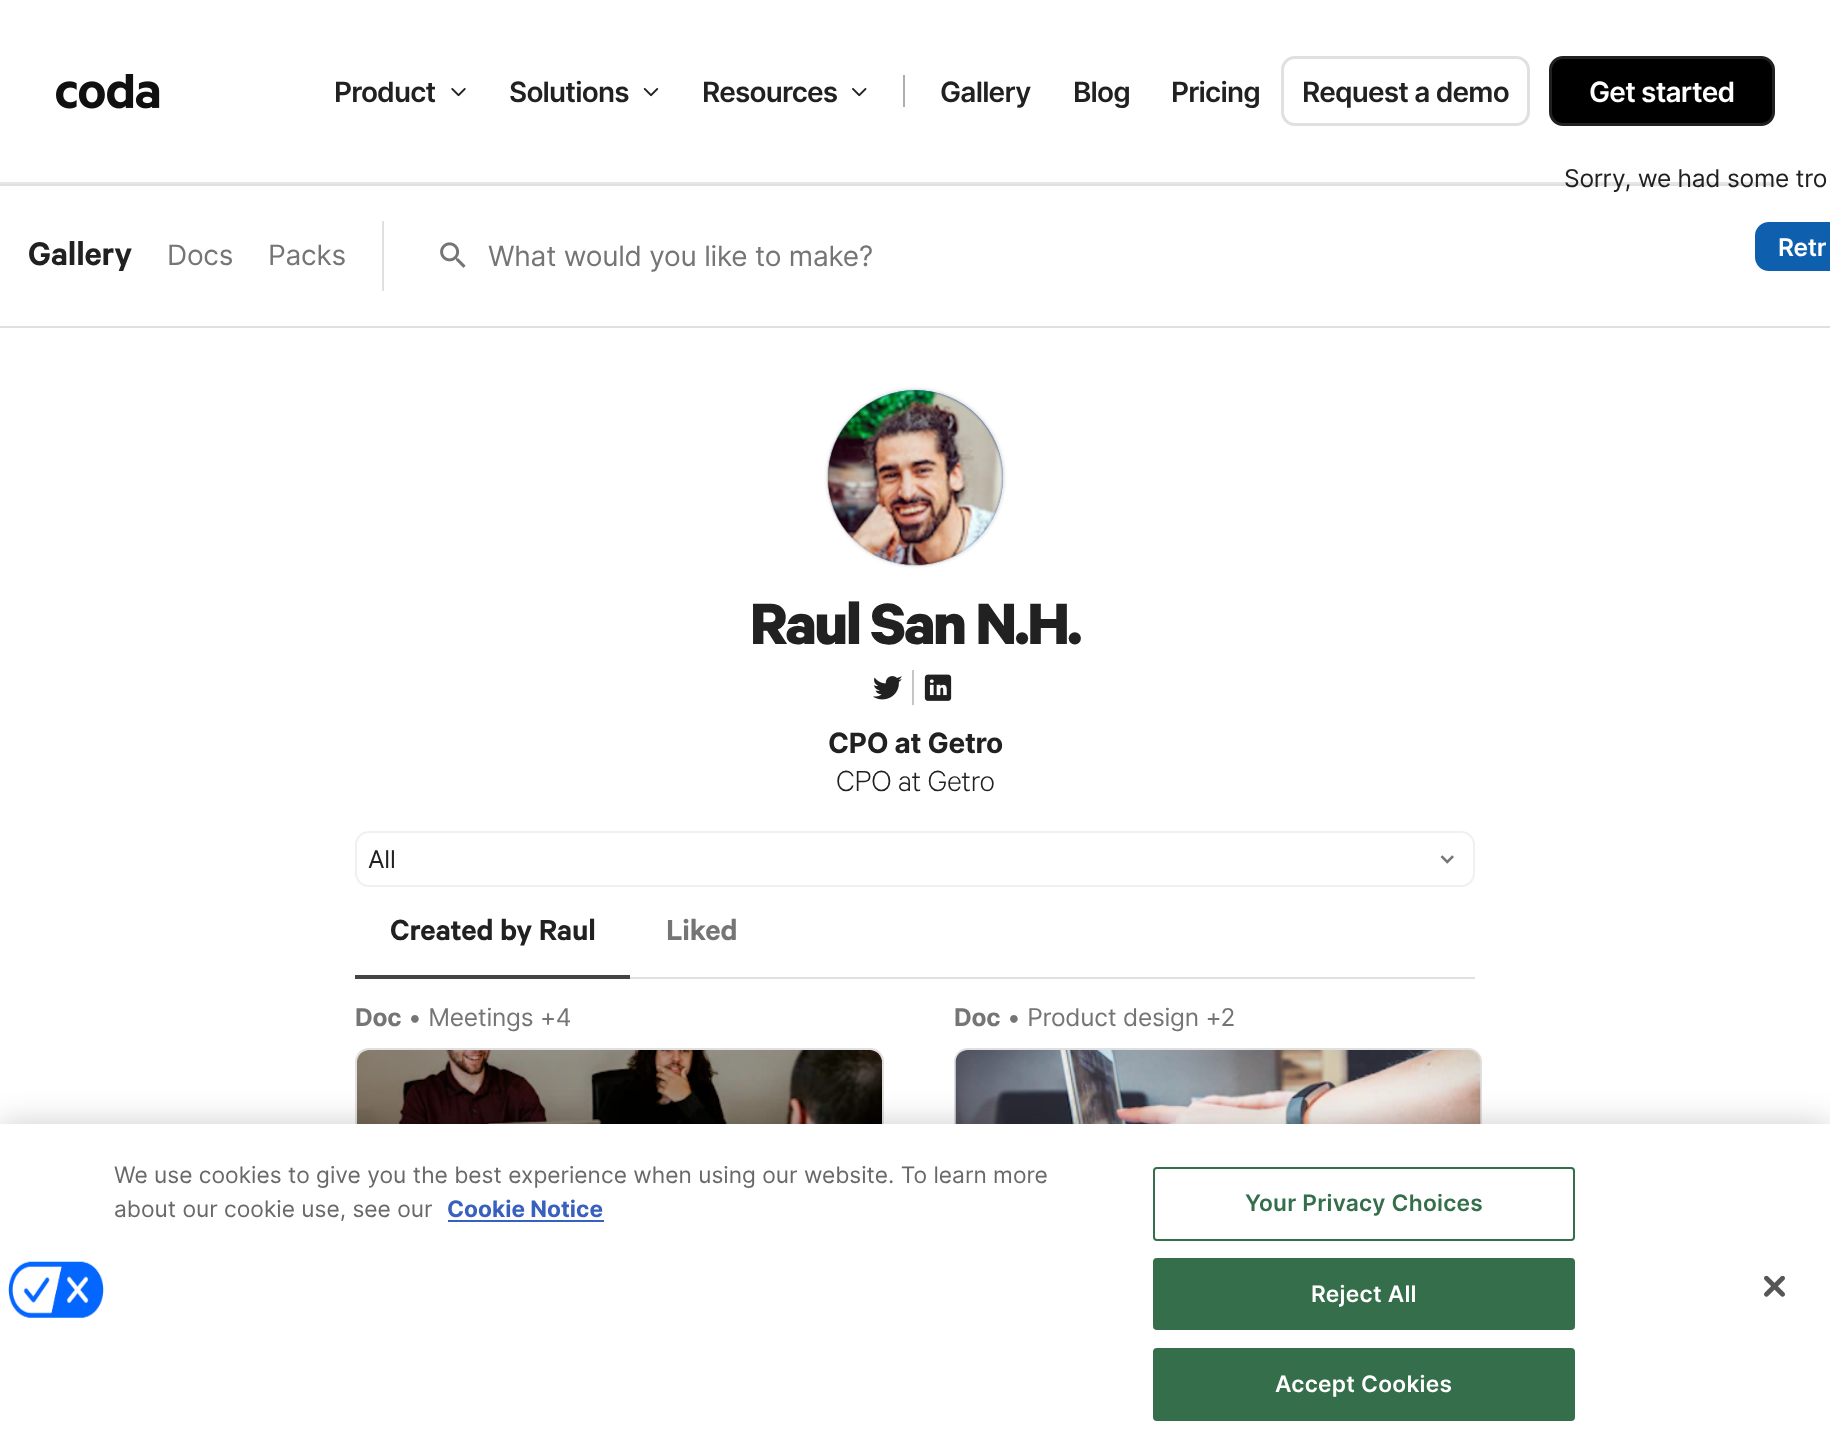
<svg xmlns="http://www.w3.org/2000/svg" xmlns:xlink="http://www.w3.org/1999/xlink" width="1830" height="1456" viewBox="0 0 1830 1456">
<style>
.cls-1{font:600 28px Inter;letter-spacing:-0.8px;fill:#212121}
.cls-2{font:600 28px Inter;letter-spacing:-0.8px;fill:#ffffff}
.cls-3{font:24.5px Inter;letter-spacing:-0.25px;fill:#212121}
.cls-4{font:600 24.5px Inter;letter-spacing:-0.25px;fill:#ffffff}
.cls-5{font:600 31.5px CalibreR;letter-spacing:-0.25px;fill:#212121}
.cls-6{font:28px Inter;letter-spacing:-0.25px;fill:#757575}
.cls-7{font:bold 56px CalibreR;letter-spacing:-2.25px;fill:#212121}
.cls-8{font:bold 28px Inter;letter-spacing:-0.25px;fill:#212121}
.cls-9{font:300 28px CalibreR;letter-spacing:-0.5px;fill:#212121}
.cls-10{font:600 28px CalibreR;letter-spacing:-0.25px;fill:#212121}
.cls-11{font:600 28px CalibreR;letter-spacing:-0.25px;fill:#757575}
.cls-12{font:bold 24.5px Inter;letter-spacing:-0.25px;fill:#757575}
.cls-13{font:24.5px Inter;letter-spacing:-0.25px;fill:#757575}
.cls-14{font:22.75px Inter;fill:#696969}
.cls-15{font:bold 22.75px Inter;fill:#3860be}
.cls-16{font:600 22.75px Inter;letter-spacing:0.25px;fill:#346e4a}
.cls-17{font:600 22.75px Inter;letter-spacing:0.25px;fill:#ffffff}
</style>
<rect width="100%" height="100%" fill="#ffffff"/>
<rect fill="#e6e6e6" x="0" y="182" width="1775" height="2"/>
<image xlink:href="image0.png" x="56" y="74" width="104" height="35"/>
<image xlink:href="image1.png" x="451" y="88" width="15" height="9"/>
<image xlink:href="image2.png" x="643" y="88" width="16" height="9"/>
<image xlink:href="image3.png" x="852" y="88" width="15" height="9"/>
<rect fill="#aeaeae" x="903" y="75" width="2" height="32"/>
<rect fill="none" stroke="#e0e0e0" stroke-width="3" x="1282.5" y="57.5" width="246" height="67" rx="12.5"/>
<rect fill="#000000" stroke="#212121" stroke-width="3" x="1550.5" y="57.5" width="223" height="67" rx="12.5"/>
<rect fill="#0f5faf" stroke="#0f5faf" stroke-width="2" x="1756" y="223" width="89" height="47" rx="13"/>
<rect fill="#e0e0e0" x="0" y="184" width="1775" height="2"/>
<rect fill="#e0e0e0" x="0" y="326" width="1830" height="2"/>
<rect fill="#e0e0e0" x="382" y="221" width="2" height="70"/>
<image xlink:href="image4.png" x="440" y="242" width="26" height="26"/>
<rect fill="#000000" fill-opacity="0.25" filter="blur(2px)" x="828" y="390" width="175" height="175" rx="87.5"/>
<circle fill="#2f75d7" cx="915.5" cy="477.5" r="87.5"/>
<image xlink:href="image5.png" x="827" y="390" width="176" height="176"/>
<circle fill="none" stroke="#000000" stroke-opacity="0.08" stroke-width="2" cx="915.5" cy="477.5" r="86.5"/>
<rect fill="#c6c6c6" x="912" y="670" width="2" height="35"/>
<image xlink:href="image6.png" x="873" y="676" width="29" height="24"/>
<image xlink:href="image7.png" x="924" y="674" width="28" height="27"/>
<rect fill="none" stroke="#f0f0f0" stroke-width="2" x="356" y="832" width="1118" height="54" rx="13"/>
<image xlink:href="image8.png" x="1440" y="855" width="14" height="9"/>
<rect fill="#e0e0e0" x="630" y="977" width="845" height="2"/>
<rect fill="#444444" x="355" y="975" width="275" height="4"/>
<rect fill="none" stroke="#e0e0e0" stroke-width="2" x="356" y="1049" width="527" height="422" rx="13"/>
<image xlink:href="image9.png" x="357" y="1050" width="525" height="74"/>
<rect fill="none" stroke="#e0e0e0" stroke-width="2" x="955" y="1049" width="526" height="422" rx="13"/>
<image xlink:href="image10.png" x="955" y="1050" width="526" height="74"/>
<rect fill="#000000" fill-opacity="0.2" filter="blur(16px)" x="0" y="1124" width="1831" height="332"/>
<rect fill="#ffffff" x="0" y="1124" width="1830" height="332"/>
<rect fill="#3860be" x="448" y="1220" width="156" height="2"/>
<image xlink:href="image11.png" x="8" y="1261" width="96" height="57"/>
<rect fill="none" stroke="#346e4a" stroke-width="2" x="1154" y="1168" width="420" height="72" rx="3"/>
<rect fill="#346e4a" stroke="#346e4a" stroke-width="2" x="1154" y="1259" width="420" height="70" rx="3"/>
<rect fill="#346e4a" stroke="#346e4a" stroke-width="2" x="1154" y="1349" width="420" height="71" rx="3"/>
<image xlink:href="image12.png" x="1764" y="1276" width="21" height="21"/>
<text class="cls-1" x="334" y="102">Product</text>
<text class="cls-1" x="509" y="102">Solutions</text>
<text class="cls-1" x="702" y="102">Resources</text>
<text class="cls-1" x="940" y="102">Gallery</text>
<text class="cls-1" x="1073" y="102">Blog</text>
<text class="cls-1" x="1171" y="102">Pricing</text>
<text class="cls-1" x="1302" y="102">Request a demo</text>
<text class="cls-2" x="1589" y="102">Get started</text>
<text class="cls-3" x="1564" y="187">Sorry, we had some tro</text>
<text class="cls-4" x="1778" y="256">Retr</text>
<text class="cls-5" x="28" y="265">Gallery</text>
<text class="cls-6" x="167" y="265">Docs</text>
<text class="cls-6" x="268" y="265">Packs</text>
<text class="cls-6" x="488" y="266">What would you like to make?</text>
<text class="cls-7" x="750" y="644">Raul San N.H.</text>
<text class="cls-8" x="828" y="753">CPO at Getro</text>
<text class="cls-9" x="836" y="791">CPO at Getro</text>
<text class="cls-3" x="368" y="868">All</text>
<text class="cls-10" x="390" y="940">Created by Raul</text>
<text class="cls-11" x="666" y="940">Liked</text>
<text class="cls-12" x="355" y="1026">Doc</text>
<text class="cls-13" x="408" y="1026">• Meetings +4</text>
<text class="cls-12" x="954" y="1026">Doc</text>
<text class="cls-13" x="1007" y="1026">• Product design +2</text>
<text class="cls-14"><tspan x="114" y="1183">We use cookies to give you the best experience when using our website. To learn more</tspan><tspan x="114" y="1217">about our cookie use, see our</tspan></text>
<text class="cls-15" x="447" y="1217">Cookie Notice</text>
<text class="cls-16" x="1245" y="1211">Your Privacy Choices</text>
<text class="cls-17" x="1311" y="1302">Reject All</text>
<text class="cls-17" x="1275" y="1392">Accept Cookies</text>
</svg>
